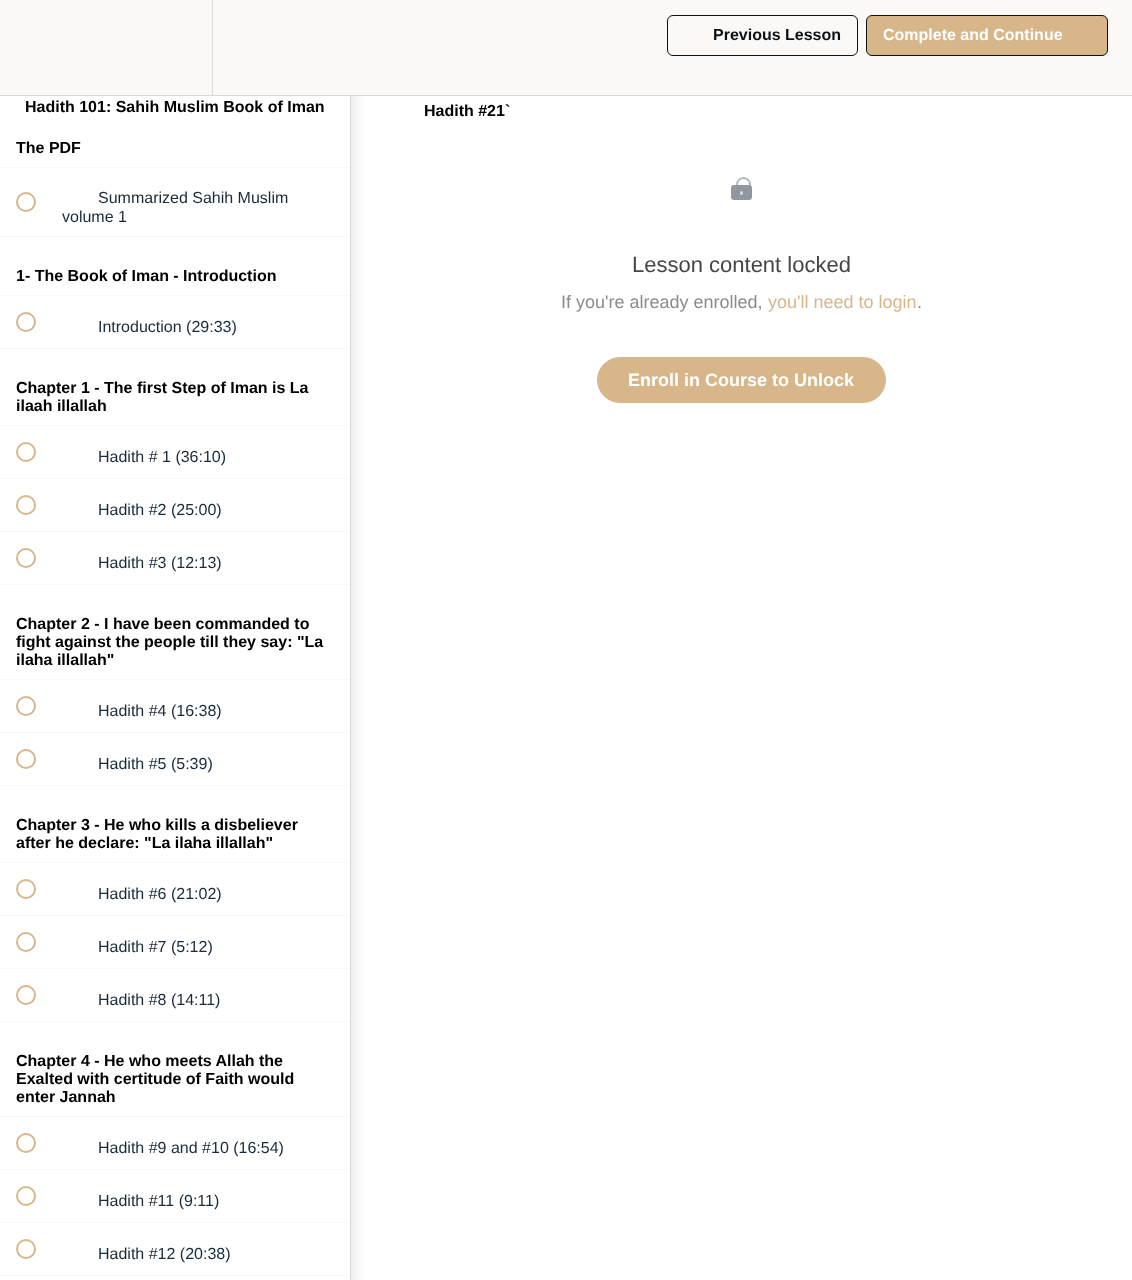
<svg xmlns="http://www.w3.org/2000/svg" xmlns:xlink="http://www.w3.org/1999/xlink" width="1132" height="1280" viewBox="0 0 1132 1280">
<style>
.cls-1{font:bold 16px Liberation Sans;fill:#0a1117}
.cls-2{font:bold 16px Liberation Sans;fill:#ffffff}
.cls-3{font:bold 16px Liberation Sans;fill:#000000}
.cls-4{font:16px Liberation Sans;fill:#192b3b}
.cls-5{font:22px Liberation Sans;fill:#454545}
.cls-6{font:18px Liberation Sans;fill:#8b8b8b}
.cls-7{font:18px Liberation Sans;fill:#d7b78a}
.cls-8{font:bold 18px Liberation Sans;fill:#ffffff}
</style>
<defs>
<clipPath id="clip1"><rect x="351" y="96" width="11" height="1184"/></clipPath>
</defs>
<rect width="100%" height="100%" fill="#ffffff"/>
<g clip-path="url(#clip1)">
<rect fill="#20272d" fill-opacity="0.15" filter="blur(10px)" x="0" y="79" width="351" height="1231"/>
</g>
<rect fill="#fcf8f5" x="0" y="0" width="1132" height="95"/>
<rect fill="#d7dadb" x="0" y="95" width="1132" height="1"/>
<rect fill="#d7dadb" x="212" y="0" width="1" height="95"/>
<rect fill="none" stroke="#0a1117" x="667.5" y="15.5" width="190" height="40" rx="5.5"/>
<rect fill="#d7b78a" stroke="#0a1117" x="866.5" y="15.5" width="241" height="40" rx="5.5"/>
<rect fill="#d7dadb" x="350" y="96" width="1" height="1184"/>
<rect fill="#fbf8f3" x="0" y="167" width="350" height="1"/>
<rect fill="#fbf8f3" x="0" y="236" width="350" height="1"/>
<circle fill="none" stroke="#d7b78a" stroke-width="2" cx="26" cy="202" r="9"/>
<rect fill="#fbf8f3" x="0" y="295" width="350" height="1"/>
<rect fill="#fbf8f3" x="0" y="348" width="350" height="1"/>
<circle fill="none" stroke="#d7b78a" stroke-width="2" cx="26" cy="322" r="9"/>
<rect fill="#fbf8f3" x="0" y="425" width="350" height="1"/>
<rect fill="#fbf8f3" x="0" y="478" width="350" height="1"/>
<circle fill="none" stroke="#d7b78a" stroke-width="2" cx="26" cy="452" r="9"/>
<rect fill="#fbf8f3" x="0" y="531" width="350" height="1"/>
<circle fill="none" stroke="#d7b78a" stroke-width="2" cx="26" cy="505" r="9"/>
<rect fill="#fbf8f3" x="0" y="584" width="350" height="1"/>
<circle fill="none" stroke="#d7b78a" stroke-width="2" cx="26" cy="558" r="9"/>
<rect fill="#fbf8f3" x="0" y="679" width="350" height="1"/>
<rect fill="#fbf8f3" x="0" y="732" width="350" height="1"/>
<circle fill="none" stroke="#d7b78a" stroke-width="2" cx="26" cy="706" r="9"/>
<rect fill="#fbf8f3" x="0" y="785" width="350" height="1"/>
<circle fill="none" stroke="#d7b78a" stroke-width="2" cx="26" cy="759" r="9"/>
<rect fill="#fbf8f3" x="0" y="862" width="350" height="1"/>
<rect fill="#fbf8f3" x="0" y="915" width="350" height="1"/>
<circle fill="none" stroke="#d7b78a" stroke-width="2" cx="26" cy="889" r="9"/>
<rect fill="#fbf8f3" x="0" y="968" width="350" height="1"/>
<circle fill="none" stroke="#d7b78a" stroke-width="2" cx="26" cy="942" r="9"/>
<rect fill="#fbf8f3" x="0" y="1021" width="350" height="1"/>
<circle fill="none" stroke="#d7b78a" stroke-width="2" cx="26" cy="995" r="9"/>
<rect fill="#fbf8f3" x="0" y="1116" width="350" height="1"/>
<rect fill="#fbf8f3" x="0" y="1169" width="350" height="1"/>
<circle fill="none" stroke="#d7b78a" stroke-width="2" cx="26" cy="1143" r="9"/>
<rect fill="#fbf8f3" x="0" y="1222" width="350" height="1"/>
<circle fill="none" stroke="#d7b78a" stroke-width="2" cx="26" cy="1196" r="9"/>
<rect fill="#fbf8f3" x="0" y="1275" width="350" height="1"/>
<circle fill="none" stroke="#d7b78a" stroke-width="2" cx="26" cy="1249" r="9"/>
<rect fill="none" stroke="#b5babf" stroke-width="2" x="737" y="178" width="13" height="20" rx="6.5"/>
<rect fill="#8f989f" x="731" y="185" width="21" height="15" rx="3"/>
<rect fill="#d3d7dc" x="740" y="191" width="3" height="4" rx="1.5"/>
<rect fill="#d7b78a" stroke="#d7b78a" x="597.5" y="357.5" width="288" height="45" rx="22.5"/>
<text class="cls-1" x="713" y="40">Previous Lesson</text>
<text class="cls-2" x="883" y="40">Complete and Continue</text>
<text class="cls-3" x="25" y="112">Hadith 101: Sahih Muslim Book of Iman</text>
<text class="cls-3" x="16" y="153">The PDF</text>
<text class="cls-4" x="98" y="203">Summarized Sahih Muslim</text>
<text class="cls-4" x="62" y="222">volume 1</text>
<text class="cls-3" x="16" y="281">1- The Book of Iman - Introduction</text>
<text class="cls-4" x="98" y="332">Introduction (29:33)</text>
<text class="cls-3"><tspan x="16" y="393">Chapter 1 - The first Step of Iman is La</tspan><tspan x="16" y="411">ilaah illallah</tspan></text>
<text class="cls-4" x="98" y="462">Hadith # 1 (36:10)</text>
<text class="cls-4" x="98" y="515">Hadith #2 (25:00)</text>
<text class="cls-4" x="98" y="568">Hadith #3 (12:13)</text>
<text class="cls-3"><tspan x="16" y="629">Chapter 2 - I have been commanded to</tspan><tspan x="16" y="647">fight against the people till they say: "La</tspan><tspan x="16" y="665">ilaha illallah"</tspan></text>
<text class="cls-4" x="98" y="716">Hadith #4 (16:38)</text>
<text class="cls-4" x="98" y="769">Hadith #5 (5:39)</text>
<text class="cls-3"><tspan x="16" y="830">Chapter 3 - He who kills a disbeliever</tspan><tspan x="16" y="848">after he declare: "La ilaha illallah"</tspan></text>
<text class="cls-4" x="98" y="899">Hadith #6 (21:02)</text>
<text class="cls-4" x="98" y="952">Hadith #7 (5:12)</text>
<text class="cls-4" x="98" y="1005">Hadith #8 (14:11)</text>
<text class="cls-3"><tspan x="16" y="1066">Chapter 4 - He who meets Allah the</tspan><tspan x="16" y="1084">Exalted with certitude of Faith would</tspan><tspan x="16" y="1102">enter Jannah</tspan></text>
<text class="cls-4" x="98" y="1153">Hadith #9 and #10 (16:54)</text>
<text class="cls-4" x="98" y="1206">Hadith #11 (9:11)</text>
<text class="cls-4" x="98" y="1259">Hadith #12 (20:38)</text>
<text class="cls-3" x="424" y="116">Hadith #21`</text>
<text class="cls-5" x="632" y="272">Lesson content locked</text>
<text class="cls-6" x="561" y="308">If you're already enrolled,</text>
<text class="cls-7" x="768" y="308">you'll need to login</text>
<text class="cls-6" x="917" y="308">.</text>
<text class="cls-8" x="628" y="386">Enroll in Course to Unlock</text>
</svg>
